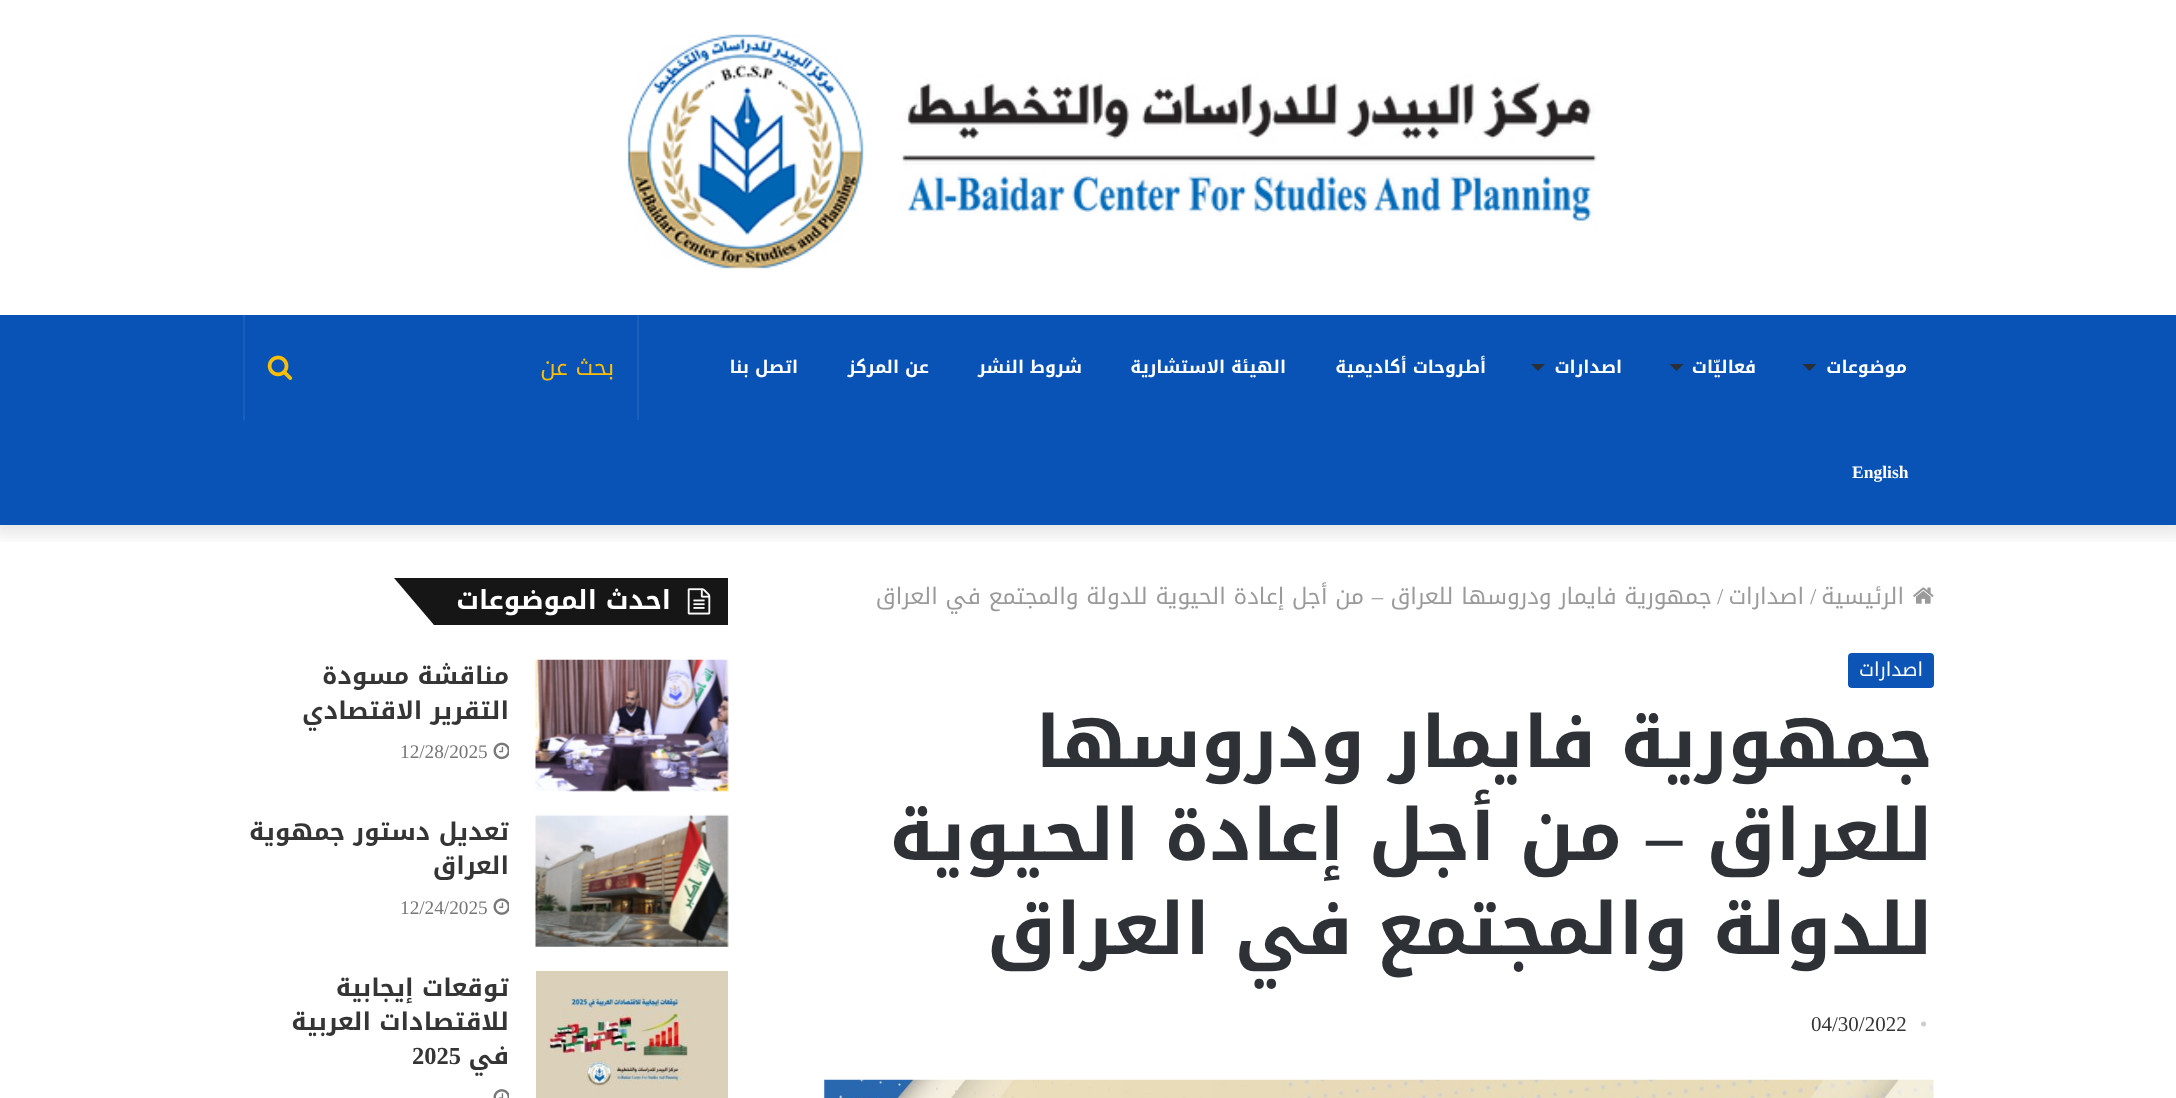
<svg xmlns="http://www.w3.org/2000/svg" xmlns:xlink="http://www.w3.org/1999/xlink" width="2176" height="1098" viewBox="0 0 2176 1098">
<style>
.cls-1{font:bold 17.5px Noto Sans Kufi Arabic;direction:rtl;fill:#ffffff}
.cls-2{font:bold 17.5px Liberation Serif;fill:#ffffff}
.cls-3{font:22.75px Noto Sans Kufi Arabic;direction:rtl;fill:#fabe06}
.cls-4{font:22.75px Noto Sans Kufi Arabic;direction:rtl;fill:#9a9a9a}
.cls-5{font:22.75px Liberation Serif;fill:#9a9a9a}
.cls-6{font:22.75px Liberation Serif;direction:rtl;fill:#9a9a9a}
.cls-7{font:19.25px Noto Sans Kufi Arabic;direction:rtl;fill:#ffffff}
.cls-8{font:bold 71.75px Noto Sans Kufi Arabic;direction:rtl;fill:#2e3136}
.cls-9{font:bold 71.75px Liberation Serif;direction:rtl;fill:#2e3136}
.cls-10{font:21px Liberation Serif;fill:#cdcdcd}
.cls-11{font:21px Liberation Serif;fill:#353535}
.cls-12{font:bold 26.25px Noto Sans Kufi Arabic;direction:rtl;fill:#ffffff}
.cls-13{font:bold 24.5px Noto Sans Kufi Arabic;direction:rtl;fill:#353535}
.cls-14{font:19.25px Liberation Serif;fill:#777777}
.cls-15{font:bold 24.5px Liberation Serif;fill:#353535}
</style>
<defs>
<clipPath id="clip1"><rect x="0" y="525" width="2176" height="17"/></clipPath>
</defs>
<rect width="100%" height="100%" fill="#ffffff"/>
<g clip-path="url(#clip1)">
<rect fill="#000000" fill-opacity="0.1" filter="blur(9px)" x="-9" y="-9" width="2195" height="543"/>
</g>
<image xlink:href="image0.png" x="627" y="34" width="970" height="235"/>
<rect fill="#0a53b6" x="0" y="315" width="2176" height="210"/>
<path fill="#2c2f34" d="M1802.5 364H1816.5L1809.5 371Z"/>
<path fill="#2c2f34" d="M1669.5 364H1683.5L1676.5 371Z"/>
<path fill="#2c2f34" d="M1531 364H1545L1538 371Z"/>
<rect fill="#1b5fbb" x="637" y="315" width="2" height="105"/>
<rect fill="#1b5fbb" x="243" y="315" width="2" height="105"/>
<image xlink:href="image1.png" x="267" y="355" width="26" height="25"/>
<image xlink:href="image2.png" x="1913" y="587" width="21" height="17"/>
<rect fill="#0c55b7" x="1848" y="653" width="86" height="35" rx="4"/>
<image xlink:href="image3.png" x="824" y="1079" width="1110" height="19"/>
<rect fill="#161616" x="597" y="578" width="131" height="47"/>
<path fill="#161616" d="M394 578H597L637 625H434Z"/>
<image xlink:href="image4.png" x="687" y="588" width="24" height="27"/>
<image xlink:href="image5.png" x="535" y="659" width="194" height="133"/>
<image xlink:href="image6.png" x="493" y="742" width="16" height="18"/>
<image xlink:href="image7.png" x="535" y="814" width="194" height="133"/>
<image xlink:href="image8.png" x="493" y="898" width="16" height="17"/>
<image xlink:href="image9.png" x="536" y="971" width="192" height="127"/>
<image xlink:href="image10.png" x="493" y="1089" width="16" height="9"/>
<text class="cls-1" x="1907" y="373">موضوعات</text>
<text class="cls-1" x="1756" y="373">فعاليّات</text>
<text class="cls-1" x="1622" y="373">اصدارات</text>
<text class="cls-1" x="1486" y="373">أطروحات أكاديمية</text>
<text class="cls-1" x="1286" y="373">الهيئة الاستشارية</text>
<text class="cls-1" x="1082" y="373">شروط النشر</text>
<text class="cls-1" x="929" y="373">عن المركز</text>
<text class="cls-1" x="798" y="373">اتصل بنا</text>
<text class="cls-2" x="1852" y="478">English</text>
<text class="cls-3" x="614" y="375">بحث عن</text>
<text class="cls-4" x="1904" y="604">الرئيسية</text>
<text class="cls-5" x="1810" y="604">/</text>
<text class="cls-4" x="1804" y="604">اصدارات</text>
<text class="cls-5" x="1717" y="604">/</text>
<text class="cls-4" x="1712" y="604">جمهورية فايمار ودروسها للعراق</text>
<text class="cls-6" x="1383" y="604">–</text>
<text class="cls-4" x="1364" y="604">من أجل إعادة الحيوية للدولة والمجتمع في العراق</text>
<text class="cls-7" x="1923" y="676">اصدارات</text>
<text class="cls-8"><tspan x="1933" y="767">جمهورية فايمار ودروسها</tspan><tspan x="1933" y="860">للعراق</tspan></text>
<text class="cls-9" x="1682" y="860">–</text>
<text class="cls-8" x="1622" y="860">من أجل إعادة الحيوية</text>
<text class="cls-8" x="1933" y="954">للدولة والمجتمع في العراق</text>
<text class="cls-10" x="1920" y="1031">•</text>
<text class="cls-11" x="1811" y="1031">04/30/2022</text>
<text class="cls-12" x="671" y="609">احدث الموضوعات</text>
<text class="cls-13"><tspan x="509" y="684">مناقشة مسودة</tspan><tspan x="509" y="719">التقرير الاقتصادي</tspan></text>
<text class="cls-14" x="400" y="758">12/28/2025</text>
<text class="cls-13"><tspan x="509" y="840">تعديل دستور جمهوية</tspan><tspan x="509" y="874">العراق</tspan></text>
<text class="cls-14" x="400" y="914">12/24/2025</text>
<text class="cls-13"><tspan x="509" y="996">توقعات إيجابية</tspan><tspan x="509" y="1030">للاقتصادات العربية</tspan><tspan x="509" y="1064">في</tspan></text>
<text class="cls-15" x="412" y="1064">2025</text>
</svg>
